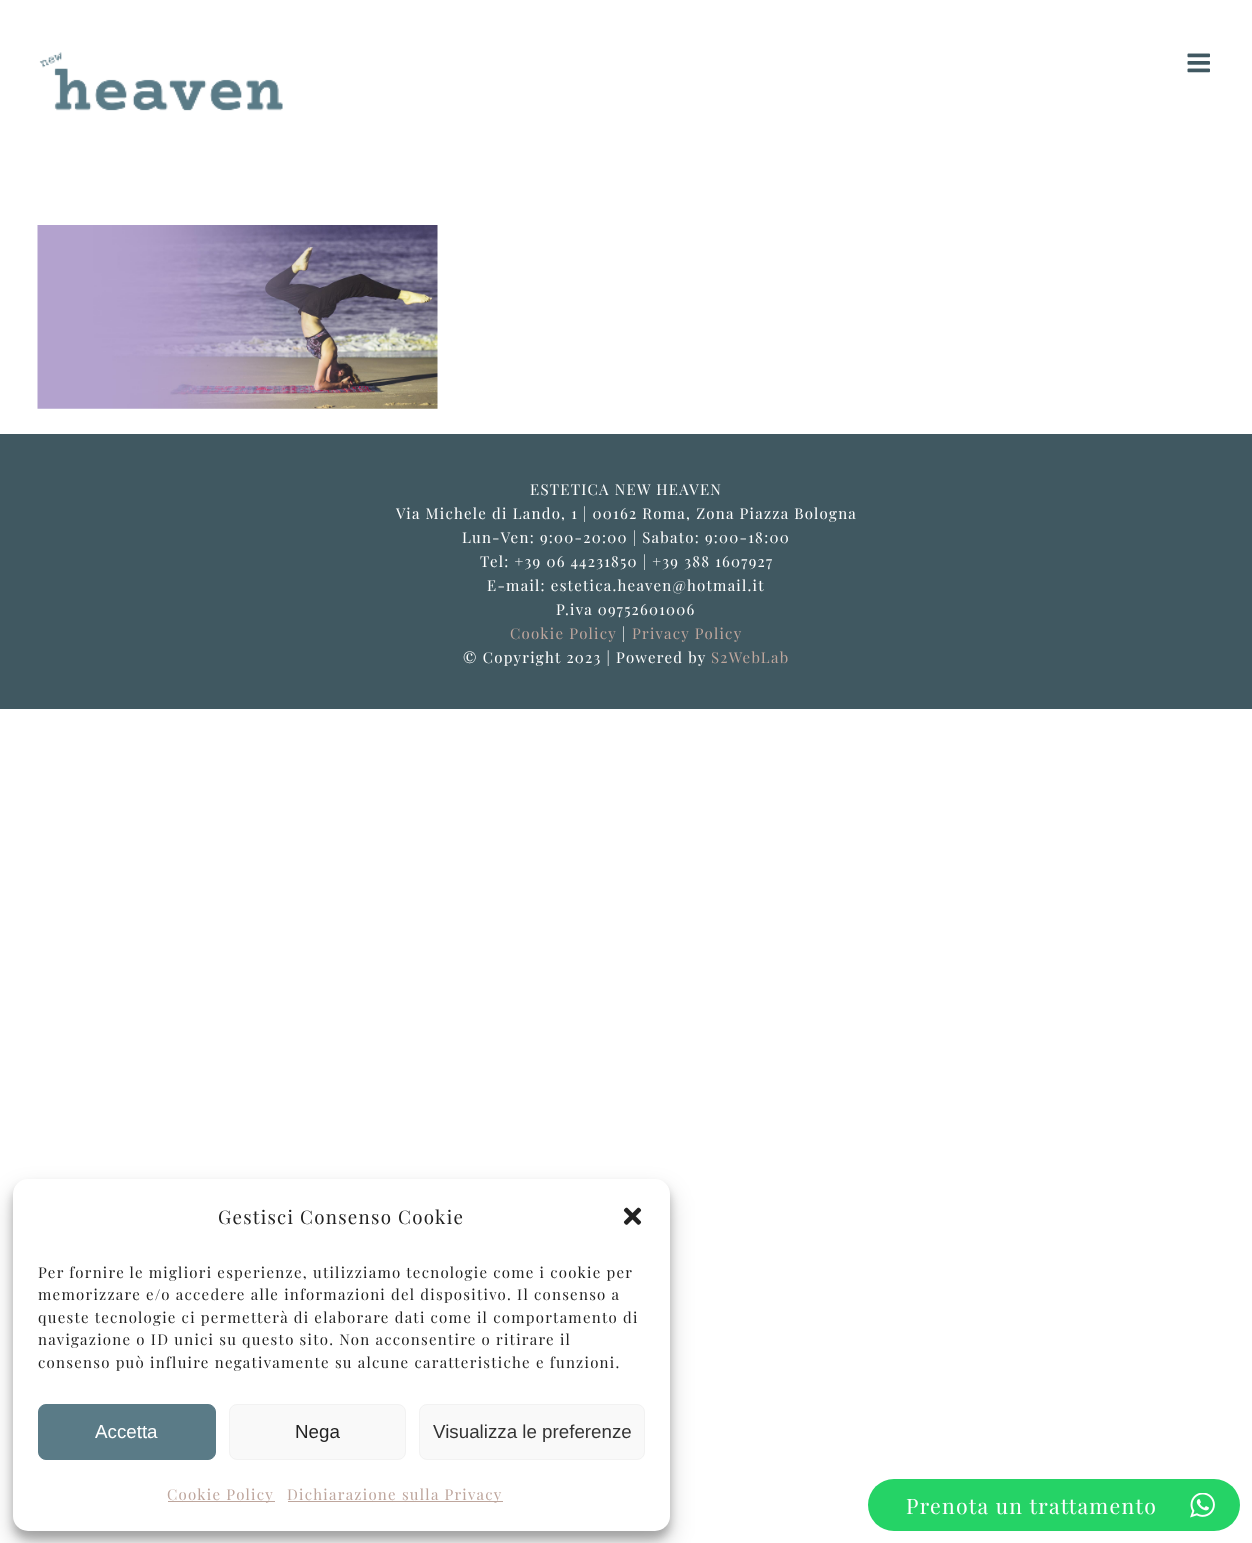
<svg xmlns="http://www.w3.org/2000/svg" xmlns:xlink="http://www.w3.org/1999/xlink" width="1252" height="1543" viewBox="0 0 1252 1543">
<style>
.cls-1{font:15px Playfair Display;letter-spacing:1.25px;fill:#ffffff}
.cls-2{font:15px Playfair Display;letter-spacing:1.25px;fill:#bea69d}
.cls-3{font:18.75px Playfair Display;letter-spacing:1.25px;fill:#222222}
.cls-4{font:15px Playfair Display;letter-spacing:1.25px;fill:#222222}
.cls-5{font:18.75px Liberation Sans;fill:#ffffff}
.cls-6{font:18.75px Liberation Sans;fill:#222222}
.cls-7{font:18.75px Liberation Sans;fill:#333333}
.cls-8{font:21.25px Playfair Display;letter-spacing:1.25px;fill:#ffffff}
</style>
<rect width="100%" height="100%" fill="#ffffff"/>
<image xlink:href="image0.png" x="39" y="52" width="244" height="59"/>
<image xlink:href="image1.png" x="1187" y="53" width="23" height="20"/>
<image xlink:href="image2.png" x="37" y="225" width="401" height="184"/>
<rect fill="#405861" x="0" y="434" width="1252" height="275"/>
<rect fill="#000000" fill-opacity="0.23" filter="blur(4px)" x="13" y="1186" width="657" height="353" rx="15"/>
<rect fill="#000000" fill-opacity="0.19" filter="blur(12.5px)" x="13" y="1191" width="657" height="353" rx="15"/>
<rect fill="#ffffff" x="13" y="1179" width="657" height="352" rx="15"/>
<image xlink:href="image3.png" x="623" y="1207" width="19" height="18"/>
<rect fill="#5a7b87" stroke="#5a7b87" x="38.5" y="1404.5" width="177" height="55" rx="7.5"/>
<rect fill="#f9f9f9" stroke="#f2f2f2" x="229.5" y="1404.5" width="176" height="55" rx="7.5"/>
<rect fill="#f9f9f9" stroke="#f2f2f2" x="419.5" y="1404.5" width="225" height="55" rx="7.5"/>
<rect fill="#bea69d" x="168" y="1501" width="107" height="1"/>
<rect fill="#bea69d" x="288" y="1501" width="215" height="1"/>
<rect fill="#25d366" x="868" y="1479" width="372" height="52" rx="26"/>
<image xlink:href="image4.png" x="1190" y="1493" width="25" height="25"/>
<text class="cls-1" x="530" y="495">ESTETICA NEW HEAVEN</text>
<text class="cls-1" x="396" y="519">Via Michele di Lando, 1 | 00162 Roma, Zona Piazza Bologna</text>
<text class="cls-1" x="462" y="543">Lun-Ven: 9:00-20:00 | Sabato: 9:00-18:00</text>
<text class="cls-1" x="480" y="567">Tel: +39 06 44231850 | +39 388 1607927</text>
<text class="cls-1" x="487" y="591">E-mail: estetica.heaven@hotmail.it</text>
<text class="cls-1" x="556" y="615">P.iva 09752601006</text>
<text class="cls-2" x="510" y="639">Cookie Policy</text>
<text class="cls-1" x="622" y="639">|</text>
<text class="cls-2" x="632" y="639">Privacy Policy</text>
<text class="cls-1" x="463" y="663">© Copyright 2023 | Powered by</text>
<text class="cls-2" x="711" y="663">S2WebLab</text>
<text class="cls-3" x="218" y="1224">Gestisci Consenso Cookie</text>
<text class="cls-4"><tspan x="38" y="1278">Per fornire le migliori esperienze, utilizziamo tecnologie come i cookie per</tspan><tspan x="38" y="1300">memorizzare e/o accedere alle informazioni del dispositivo. Il consenso a</tspan><tspan x="38" y="1323">queste tecnologie ci permetterà di elaborare dati come il comportamento di</tspan><tspan x="38" y="1345">navigazione o ID unici su questo sito. Non acconsentire o ritirare il</tspan><tspan x="38" y="1368">consenso può influire negativamente su alcune caratteristiche e funzioni.</tspan></text>
<text class="cls-5" x="95" y="1438">Accetta</text>
<text class="cls-6" x="295" y="1438">Nega</text>
<text class="cls-7" x="433" y="1438">Visualizza le preferenze</text>
<text class="cls-2" x="167" y="1500">Cookie Policy</text>
<text class="cls-2" x="287" y="1500">Dichiarazione sulla Privacy</text>
<text class="cls-8" x="906" y="1514">Prenota un trattamento</text>
</svg>
